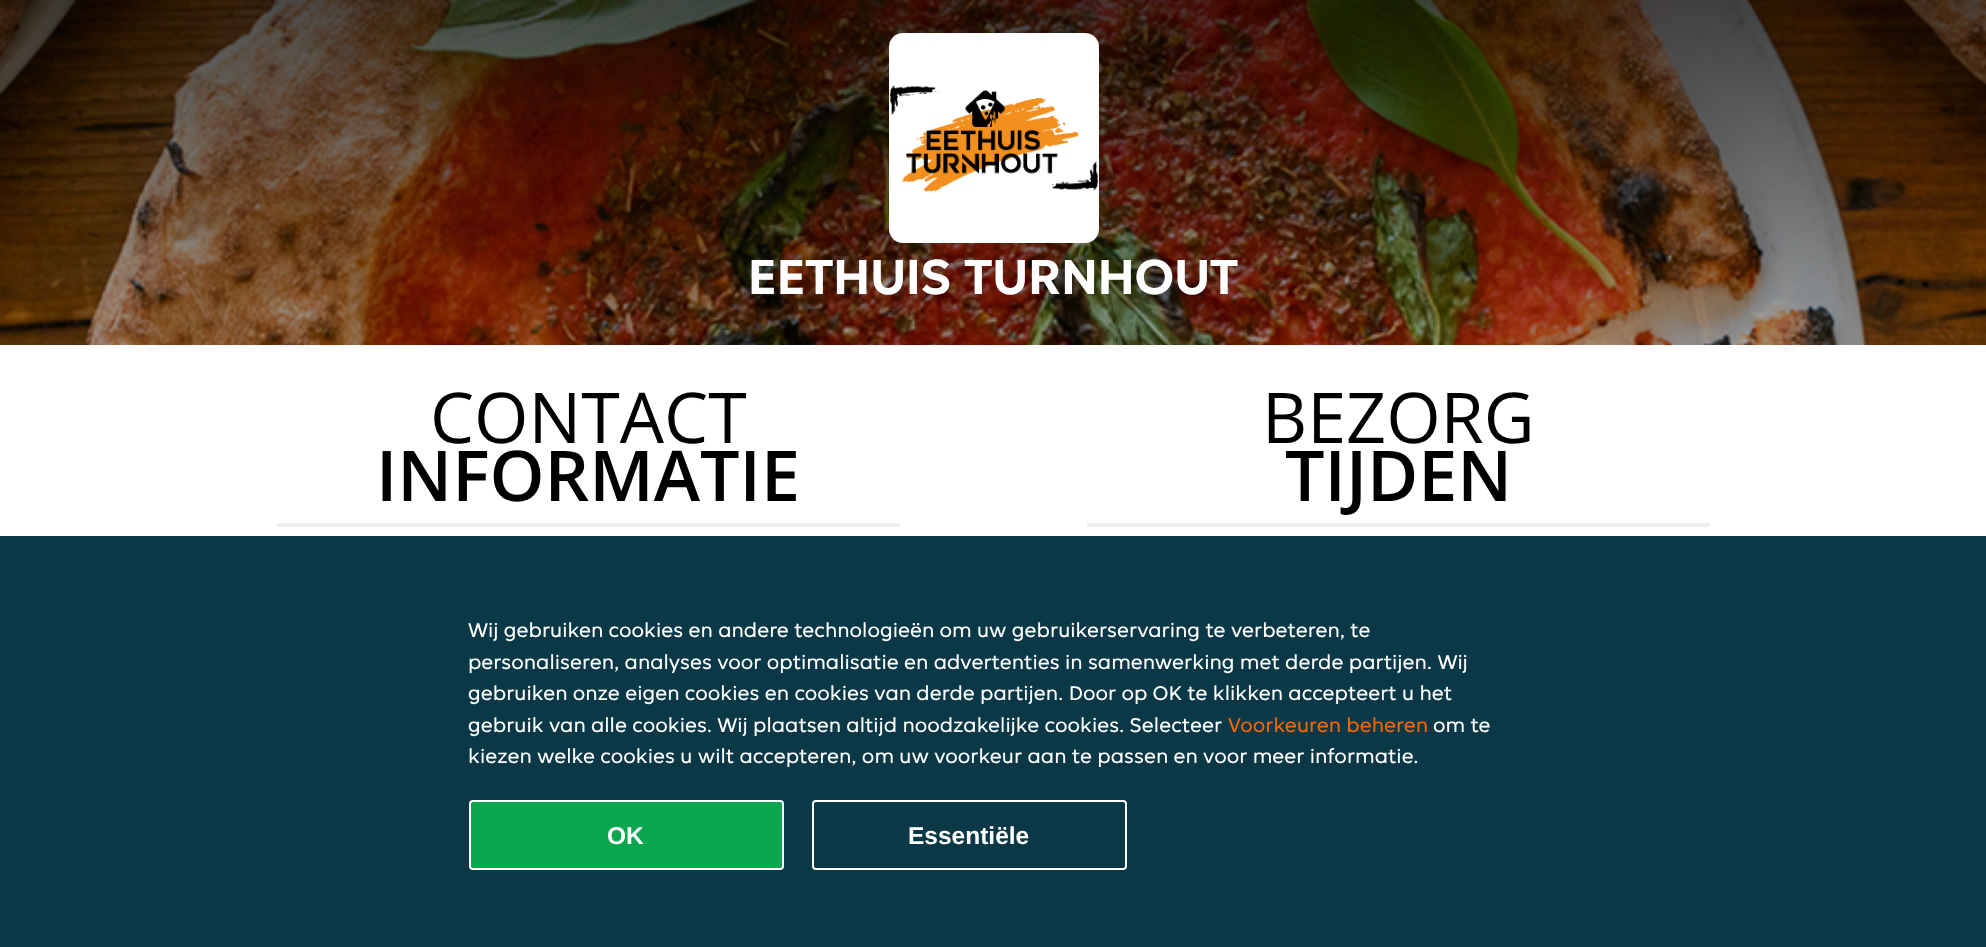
<svg xmlns="http://www.w3.org/2000/svg" xmlns:xlink="http://www.w3.org/1999/xlink" width="1986" height="947" viewBox="0 0 1986 947">
<style>
.cls-1{font:bold 52.5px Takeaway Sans;fill:#ffffff}
.cls-2{font:70px Open Sans;fill:#000000}
.cls-3{font:600 70px Open Sans;fill:#000000}
.cls-4{font:21px Takeaway Sans;fill:#ffffff}
.cls-5{font:21px Takeaway Sans;fill:#f86600}
.cls-6{font:bold 24.5px Liberation Sans;fill:#ffffff}
</style>
<defs>
<linearGradient id="g1" gradientUnits="userSpaceOnUse" x1="993" y1="0" x2="993" y2="875"><stop offset="0" stop-color="#000000" stop-opacity="0.7"/><stop offset="0.33" stop-color="#000000" stop-opacity="0.4"/><stop offset="0.67" stop-color="#000000" stop-opacity="0.2"/><stop offset="1" stop-color="#000000" stop-opacity="0"/></linearGradient>
</defs>
<rect width="100%" height="100%" fill="#ffffff"/>
<image xlink:href="image0.png" x="0" y="0" width="1986" height="345"/>
<rect fill="url(#g1)" x="0" y="0" width="1986" height="345"/>
<rect fill="#ffffff" x="889" y="33" width="210" height="210" rx="14"/>
<image xlink:href="image1.png" x="890" y="85" width="209" height="107"/>
<rect fill="#eeeeee" x="277" y="523" width="623" height="4"/>
<rect fill="#eeeeee" x="1087" y="523" width="623" height="4"/>
<rect fill="#0a3847" x="0" y="536" width="1986" height="411"/>
<rect fill="#0ca64f" stroke="#ffffff" stroke-width="2" x="470" y="801" width="313" height="68" rx="3"/>
<rect fill="none" stroke="#ffffff" stroke-width="2" x="813" y="801" width="313" height="68" rx="3"/>
<text class="cls-1" x="748" y="294">EETHUIS TURNHOUT</text>
<text class="cls-2" x="430" y="443">CONTACT</text>
<text class="cls-3" x="376" y="501">INFORMATIE</text>
<text class="cls-2" x="1262" y="443">BEZORG</text>
<text class="cls-3" x="1285" y="501">TIJDEN</text>
<text class="cls-4"><tspan x="468" y="637">Wij gebruiken cookies en andere technologieën om uw gebruikerservaring te verbeteren, te</tspan><tspan x="468" y="669">personaliseren, analyses voor optimalisatie en advertenties in samenwerking met derde partijen. Wij</tspan><tspan x="468" y="700">gebruiken onze eigen cookies en cookies van derde partijen. Door op OK te klikken accepteert u het</tspan><tspan x="468" y="732">gebruik van alle cookies. Wij plaatsen altijd noodzakelijke cookies. Selecteer</tspan></text>
<text class="cls-5" x="1228" y="732">Voorkeuren beheren</text>
<text class="cls-4" x="1433" y="732">om te</text>
<text class="cls-4" x="468" y="763">kiezen welke cookies u wilt accepteren, om uw voorkeur aan te passen en voor meer informatie.</text>
<text class="cls-6" x="607" y="844">OK</text>
<text class="cls-6" x="908" y="844">Essentiële</text>
</svg>
